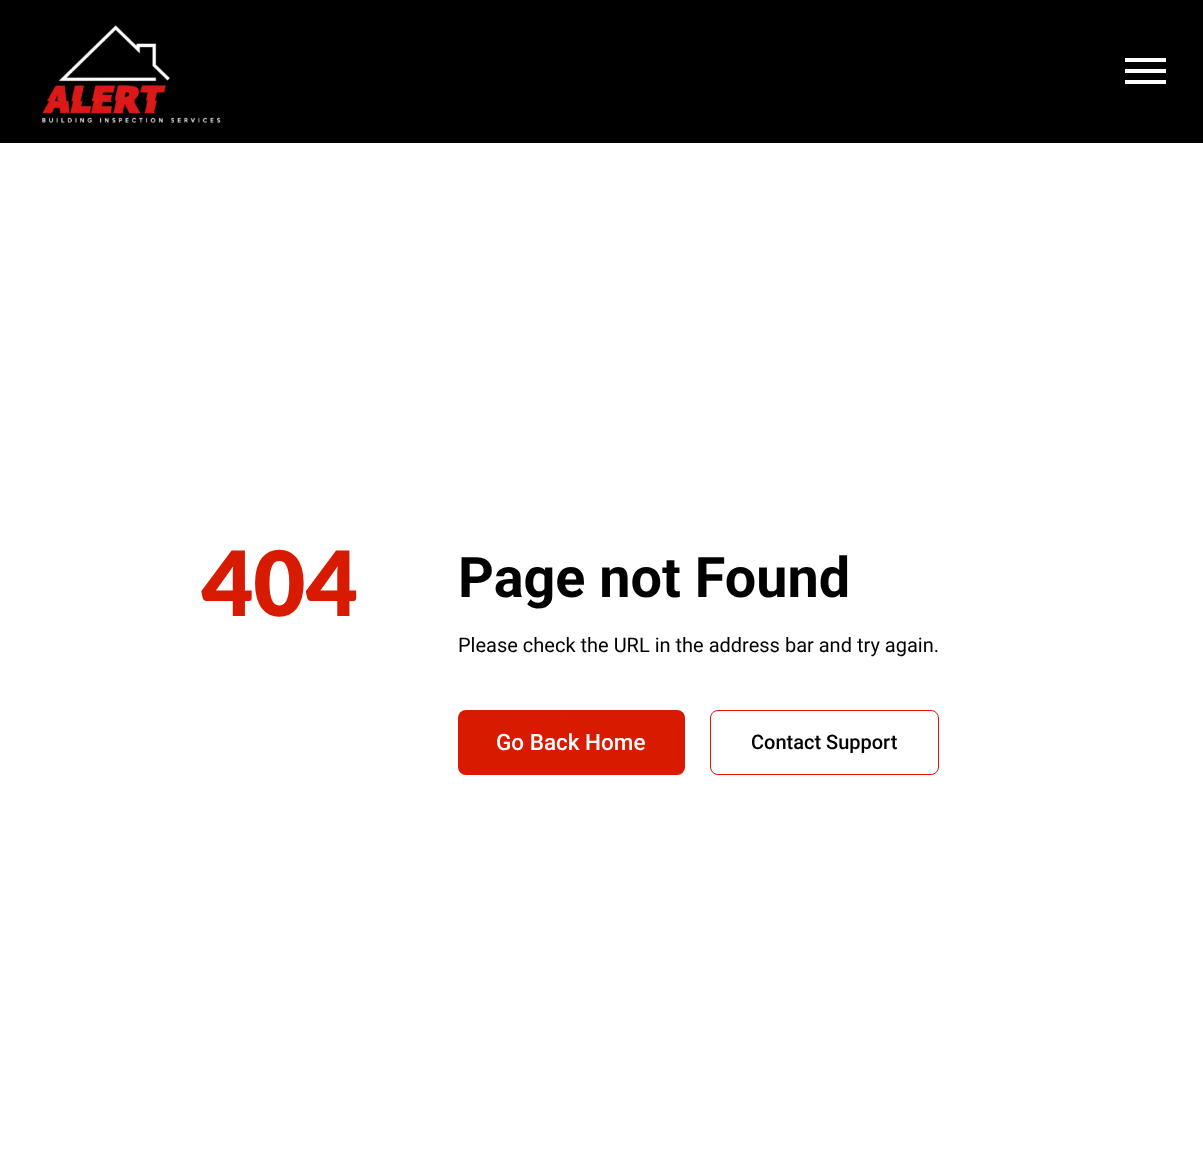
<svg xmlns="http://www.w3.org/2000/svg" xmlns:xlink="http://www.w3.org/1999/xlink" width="1203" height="1151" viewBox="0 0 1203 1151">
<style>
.cls-1{font:900 90px Lato;fill:#d81a00}
.cls-2{font:bold 55.75px Roboto;fill:#000000}
.cls-3{font:20px Roboto;fill:#000000}
.cls-4{font:500 22.5px Roboto;fill:#ffffff}
.cls-5{font:500 20px Roboto;fill:#000000}
</style>
<rect width="100%" height="100%" fill="#ffffff"/>
<rect fill="#000000" x="0" y="0" width="1203" height="143"/>
<image xlink:href="image0.png" x="42" y="25" width="179" height="98"/>
<rect fill="#ffffff" x="1125" y="69" width="41" height="4"/>
<rect fill="#ffffff" x="1125" y="58" width="41" height="4"/>
<rect fill="#ffffff" x="1125" y="80" width="41" height="4"/>
<rect fill="#d81a00" x="458" y="710" width="227" height="65" rx="8"/>
<rect fill="none" stroke="#d81a00" x="710.5" y="710.5" width="228" height="64" rx="7.5"/>
<text class="cls-1" x="201" y="616">404</text>
<text class="cls-2" x="458" y="597">Page not Found</text>
<text class="cls-3" x="458" y="652">Please check the URL in the address bar and try again.</text>
<text class="cls-4" x="496" y="750">Go Back Home</text>
<text class="cls-5" x="751" y="749">Contact Support</text>
</svg>
